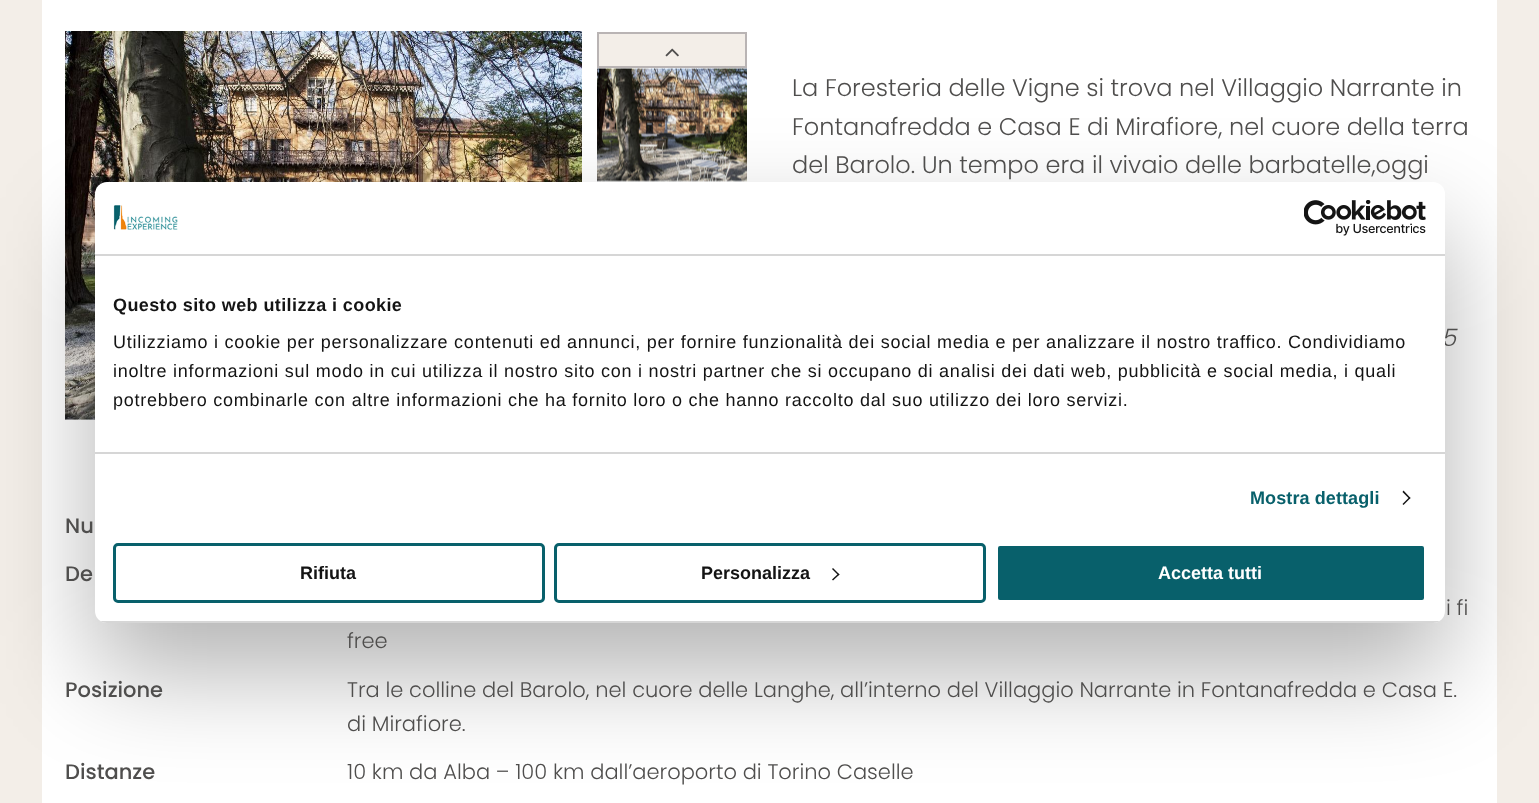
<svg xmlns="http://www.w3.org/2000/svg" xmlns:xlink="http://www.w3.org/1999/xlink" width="1539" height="803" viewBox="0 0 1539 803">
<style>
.cls-1{font:300 24px Poppins;fill:#4f4e4d}
.cls-2{font:italic 300 24px Poppins;fill:#4f4e4d}
.cls-3{font:500 21px Poppins;fill:#4f4e4d}
.cls-4{font:300 21px Poppins;fill:#4f4e4d}
.cls-5{font:bold 18px Liberation Sans;letter-spacing:0.4px;fill:#141414}
.cls-6{font:18px Liberation Sans;letter-spacing:0.75px;fill:#141414}
.cls-7{font:bold 18px Liberation Sans;letter-spacing:0.1px;fill:#08606b}
.cls-8{font:bold 18px Liberation Sans;fill:#141414}
.cls-9{font:bold 18px Liberation Sans;fill:#ffffff}
</style>
<defs>
<clipPath id="clip1"><rect x="95" y="182" width="1350" height="441" rx="12"/></clipPath>
</defs>
<rect width="100%" height="100%" fill="#f3eee8"/>
<rect fill="#ffffff" x="42" y="0" width="1455" height="803"/>
<image xlink:href="image0.png" x="65" y="31" width="517" height="389"/>
<rect fill="#f3eee8" stroke="#b9b4b4" stroke-width="2" x="598" y="33" width="148" height="34"/>
<image xlink:href="image1.png" x="665" y="48" width="14" height="9"/>
<image xlink:href="image2.png" x="597" y="68" width="150" height="114"/>
<rect fill="#000000" fill-opacity="0.3" filter="blur(51px)" x="95" y="230" width="1350" height="441" rx="12"/>
<text class="cls-1"><tspan x="792" y="96">La Foresteria delle Vigne si trova nel Villaggio Narrante in</tspan><tspan x="792" y="135">Fontanafredda e Casa E di Mirafiore, nel cuore della terra</tspan><tspan x="792" y="173">del Barolo. Un tempo era il vivaio delle barbatelle,oggi</tspan></text>
<text class="cls-2" x="1441" y="346">5</text>
<text class="cls-3" x="65" y="533">Nu</text>
<text class="cls-3" x="65" y="581">De</text>
<text class="cls-4" x="1446" y="615">i fi</text>
<text class="cls-4" x="347" y="648">free</text>
<text class="cls-3" x="65" y="697">Posizione</text>
<text class="cls-4"><tspan x="347" y="697">Tra le colline del Barolo, nel cuore delle Langhe, all’interno del Villaggio Narrante in Fontanafredda e Casa E.</tspan><tspan x="347" y="731">di Mirafiore.</tspan></text>
<text class="cls-3" x="65" y="779">Distanze</text>
<text class="cls-4" x="347" y="779">10 km da Alba – 100 km dall’aeroporto di Torino Caselle</text>
<rect fill="#ffffff" x="95" y="182" width="1350" height="441" rx="12"/>
<rect fill="#d6d6d6" x="95" y="254" width="1350" height="2"/>
<image xlink:href="image3.png" x="113" y="205" width="65" height="25"/>
<image xlink:href="image4.png" x="1304" y="200" width="122" height="36"/>
<rect fill="#d6d6d6" x="95" y="452" width="1350" height="2"/>
<text class="cls-5" x="113" y="311">Questo sito web utilizza i cookie</text>
<text class="cls-6"><tspan x="113" y="348">Utilizziamo i cookie per personalizzare contenuti ed annunci, per fornire funzionalità dei social media e per analizzare il nostro traffico. Condividiamo</tspan><tspan x="113" y="377">inoltre informazioni sul modo in cui utilizza il nostro sito con i nostri partner che si occupano di analisi dei dati web, pubblicità e social media, i quali</tspan><tspan x="113" y="406">potrebbero combinarle con altre informazioni che ha fornito loro o che hanno raccolto dal suo utilizzo dei loro servizi.</tspan></text>
<text class="cls-7" x="1250" y="504">Mostra dettagli</text>
<path fill="#141414" d="M1403.5 490.5L1410.5 498L1409.5 499L1402.5 492Z"/>
<path fill="#141414" d="M1409.5 497L1410.5 498L1403.5 505L1402.5 504Z"/>
<g clip-path="url(#clip1)">
<rect fill="#d6d6d6" x="95" y="621" width="1350" height="2"/>
</g>
<rect fill="none" stroke="#08606b" stroke-width="3" x="114.5" y="544.5" width="429" height="57" rx="3.5"/>
<text class="cls-8" x="300" y="579">Rifiuta</text>
<rect fill="none" stroke="#08606b" stroke-width="3" x="555.5" y="544.5" width="429" height="57" rx="3.5"/>
<text class="cls-8" x="701" y="579">Personalizza</text>
<path fill="#141414" d="M833 568L839.5 574.5L838.5 575.5L832 569Z"/>
<path fill="#141414" d="M838.5 573.5L839.5 574.5L833 580.5L832 579.5Z"/>
<rect fill="#08606b" stroke="#ffffff" stroke-width="3" x="996.5" y="544.5" width="429" height="57" rx="3.5"/>
<text class="cls-9" x="1158" y="579">Accetta tutti</text>
</svg>
